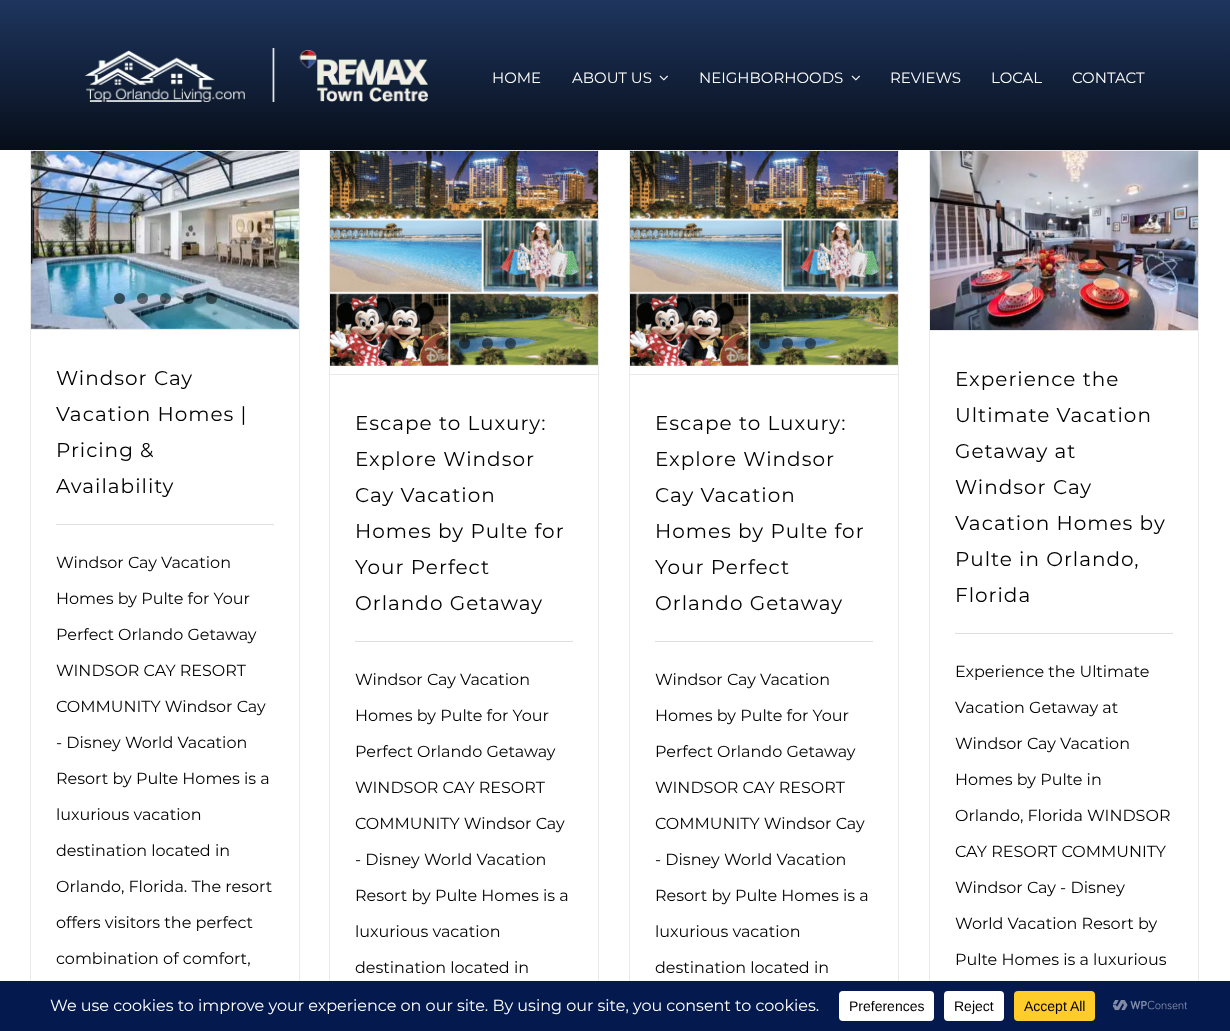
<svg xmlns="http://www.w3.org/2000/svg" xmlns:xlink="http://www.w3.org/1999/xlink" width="1230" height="1031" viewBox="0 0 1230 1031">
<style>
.cls-1{font:15px Montserrat;fill:#ffffff}
.cls-2{font:20px Montserrat;letter-spacing:1px;fill:#000000}
.cls-3{font:16px Montserrat;fill:#000000}
.cls-4{font:16px Montserrat;fill:#ffffff}
.cls-5{font:14px Liberation Sans;fill:#000000}
</style>
<defs>
<linearGradient id="g1" gradientUnits="userSpaceOnUse" x1="615" y1="0" x2="615" y2="150"><stop offset="0" stop-color="#1e355e"/><stop offset="1" stop-color="#070e1a"/></linearGradient>
</defs>
<rect width="100%" height="100%" fill="#ffffff"/>
<rect fill="url(#g1)" x="0" y="0" width="1230" height="150"/>
<image xlink:href="image0.png" x="85" y="48" width="343" height="54"/>
<image xlink:href="image1.png" x="659" y="75" width="9" height="6"/>
<image xlink:href="image1.png" x="851" y="75" width="9" height="6"/>
<rect fill="#ebeaea" x="30" y="150" width="270" height="1"/>
<rect fill="#ebeaea" x="299" y="150" width="1" height="831"/>
<rect fill="#ebeaea" x="30" y="150" width="1" height="831"/>
<rect fill="#ebeaea" x="31" y="329" width="268" height="1"/>
<image xlink:href="image2.png" x="31" y="151" width="268" height="178"/>
<circle fill="#000000" fill-opacity="0.6" cx="119.5" cy="298.5" r="5.5"/>
<circle fill="#000000" fill-opacity="0.5" cx="142.5" cy="298.5" r="5.5"/>
<circle fill="#000000" fill-opacity="0.5" cx="165.5" cy="298.5" r="5.5"/>
<circle fill="#000000" fill-opacity="0.5" cx="188.5" cy="298.5" r="5.5"/>
<circle fill="#000000" fill-opacity="0.5" cx="211.5" cy="298.5" r="5.5"/>
<rect fill="#e0dede" x="56" y="524" width="218" height="1"/>
<rect fill="#ebeaea" x="329" y="150" width="270" height="1"/>
<rect fill="#ebeaea" x="598" y="150" width="1" height="831"/>
<rect fill="#ebeaea" x="329" y="150" width="1" height="831"/>
<rect fill="#ebeaea" x="330" y="374" width="268" height="1"/>
<image xlink:href="image3.png" x="330" y="151" width="268" height="215"/>
<circle fill="#000000" fill-opacity="0.6" cx="418.5" cy="343.5" r="5.5"/>
<circle fill="#000000" fill-opacity="0.5" cx="441.5" cy="343.5" r="5.5"/>
<circle fill="#000000" fill-opacity="0.5" cx="464.5" cy="343.5" r="5.5"/>
<circle fill="#000000" fill-opacity="0.5" cx="487.5" cy="343.5" r="5.5"/>
<circle fill="#000000" fill-opacity="0.5" cx="510.5" cy="343.5" r="5.5"/>
<rect fill="#e0dede" x="355" y="641" width="218" height="1"/>
<rect fill="#ebeaea" x="629" y="150" width="270" height="1"/>
<rect fill="#ebeaea" x="898" y="150" width="1" height="831"/>
<rect fill="#ebeaea" x="629" y="150" width="1" height="831"/>
<rect fill="#ebeaea" x="630" y="374" width="268" height="1"/>
<image xlink:href="image4.png" x="630" y="151" width="268" height="215"/>
<circle fill="#000000" fill-opacity="0.6" cx="718.5" cy="343.5" r="5.5"/>
<circle fill="#000000" fill-opacity="0.5" cx="741.5" cy="343.5" r="5.5"/>
<circle fill="#000000" fill-opacity="0.5" cx="764.5" cy="343.5" r="5.5"/>
<circle fill="#000000" fill-opacity="0.5" cx="787.5" cy="343.5" r="5.5"/>
<circle fill="#000000" fill-opacity="0.5" cx="810.5" cy="343.5" r="5.5"/>
<rect fill="#e0dede" x="655" y="641" width="218" height="1"/>
<rect fill="#ebeaea" x="929" y="150" width="270" height="1"/>
<rect fill="#ebeaea" x="1198" y="150" width="1" height="831"/>
<rect fill="#ebeaea" x="929" y="150" width="1" height="831"/>
<rect fill="#ebeaea" x="930" y="330" width="268" height="1"/>
<image xlink:href="image5.png" x="930" y="151" width="268" height="179"/>
<rect fill="#e0dede" x="955" y="633" width="218" height="1"/>
<rect fill="#04194e" x="0" y="981" width="1230" height="50"/>
<rect fill="#ffffff" x="839" y="991" width="95" height="30" rx="4"/>
<rect fill="#ffffff" x="944" y="991" width="60" height="30" rx="4"/>
<rect fill="#ffcd2a" x="1014" y="991" width="81" height="30" rx="4"/>
<image xlink:href="image6.png" x="1112" y="1000" width="75" height="11"/>
<text class="cls-1" x="492" y="83">HOME</text>
<text class="cls-1" x="572" y="83">ABOUT US</text>
<text class="cls-1" x="699" y="83">NEIGHBORHOODS</text>
<text class="cls-1" x="890" y="83">REVIEWS</text>
<text class="cls-1" x="991" y="83">LOCAL</text>
<text class="cls-1" x="1072" y="83">CONTACT</text>
<text class="cls-2"><tspan x="56" y="385">Windsor Cay</tspan><tspan x="56" y="421">Vacation Homes |</tspan><tspan x="56" y="457">Pricing &amp;</tspan><tspan x="56" y="493">Availability</tspan></text>
<text class="cls-3" x="56" y="568">Windsor Cay Vacation</text>
<text class="cls-3" x="56" y="604">Homes by Pulte for Your</text>
<text class="cls-3" x="56" y="640">Perfect Orlando Getaway</text>
<text class="cls-3" x="56" y="676">WINDSOR CAY RESORT</text>
<text class="cls-3" x="56" y="712">COMMUNITY Windsor Cay</text>
<text class="cls-3" x="56" y="748">- Disney World Vacation</text>
<text class="cls-3" x="56" y="784">Resort by Pulte Homes is a</text>
<text class="cls-3" x="56" y="820">luxurious vacation</text>
<text class="cls-3" x="56" y="856">destination located in</text>
<text class="cls-3" x="56" y="892">Orlando, Florida. The resort</text>
<text class="cls-3" x="56" y="928">offers visitors the perfect</text>
<text class="cls-3" x="56" y="964">combination of comfort,</text>
<text class="cls-2"><tspan x="355" y="430">Escape to Luxury:</tspan><tspan x="355" y="466">Explore Windsor</tspan><tspan x="355" y="502">Cay Vacation</tspan><tspan x="355" y="538">Homes by Pulte for</tspan><tspan x="355" y="574">Your Perfect</tspan><tspan x="355" y="610">Orlando Getaway</tspan></text>
<text class="cls-3" x="355" y="685">Windsor Cay Vacation</text>
<text class="cls-3" x="355" y="721">Homes by Pulte for Your</text>
<text class="cls-3" x="355" y="757">Perfect Orlando Getaway</text>
<text class="cls-3" x="355" y="793">WINDSOR CAY RESORT</text>
<text class="cls-3" x="355" y="829">COMMUNITY Windsor Cay</text>
<text class="cls-3" x="355" y="865">- Disney World Vacation</text>
<text class="cls-3" x="355" y="901">Resort by Pulte Homes is a</text>
<text class="cls-3" x="355" y="937">luxurious vacation</text>
<text class="cls-3" x="355" y="973">destination located in</text>
<text class="cls-2"><tspan x="655" y="430">Escape to Luxury:</tspan><tspan x="655" y="466">Explore Windsor</tspan><tspan x="655" y="502">Cay Vacation</tspan><tspan x="655" y="538">Homes by Pulte for</tspan><tspan x="655" y="574">Your Perfect</tspan><tspan x="655" y="610">Orlando Getaway</tspan></text>
<text class="cls-3" x="655" y="685">Windsor Cay Vacation</text>
<text class="cls-3" x="655" y="721">Homes by Pulte for Your</text>
<text class="cls-3" x="655" y="757">Perfect Orlando Getaway</text>
<text class="cls-3" x="655" y="793">WINDSOR CAY RESORT</text>
<text class="cls-3" x="655" y="829">COMMUNITY Windsor Cay</text>
<text class="cls-3" x="655" y="865">- Disney World Vacation</text>
<text class="cls-3" x="655" y="901">Resort by Pulte Homes is a</text>
<text class="cls-3" x="655" y="937">luxurious vacation</text>
<text class="cls-3" x="655" y="973">destination located in</text>
<text class="cls-2"><tspan x="955" y="386">Experience the</tspan><tspan x="955" y="422">Ultimate Vacation</tspan><tspan x="955" y="458">Getaway at</tspan><tspan x="955" y="494">Windsor Cay</tspan><tspan x="955" y="530">Vacation Homes by</tspan><tspan x="955" y="566">Pulte in Orlando,</tspan><tspan x="955" y="602">Florida</tspan></text>
<text class="cls-3" x="955" y="677">Experience the Ultimate</text>
<text class="cls-3" x="955" y="713">Vacation Getaway at</text>
<text class="cls-3" x="955" y="749">Windsor Cay Vacation</text>
<text class="cls-3" x="955" y="785">Homes by Pulte in</text>
<text class="cls-3" x="955" y="821">Orlando, Florida WINDSOR</text>
<text class="cls-3" x="955" y="857">CAY RESORT COMMUNITY</text>
<text class="cls-3" x="955" y="893">Windsor Cay - Disney</text>
<text class="cls-3" x="955" y="929">World Vacation Resort by</text>
<text class="cls-3" x="955" y="965">Pulte Homes is a luxurious</text>
<text class="cls-4" x="50" y="1011">We use cookies to improve your experience on our site. By using our site, you consent to cookies.</text>
<text class="cls-5" x="849" y="1011">Preferences</text>
<text class="cls-5" x="954" y="1011">Reject</text>
<text class="cls-5" x="1024" y="1011">Accept All</text>
</svg>
